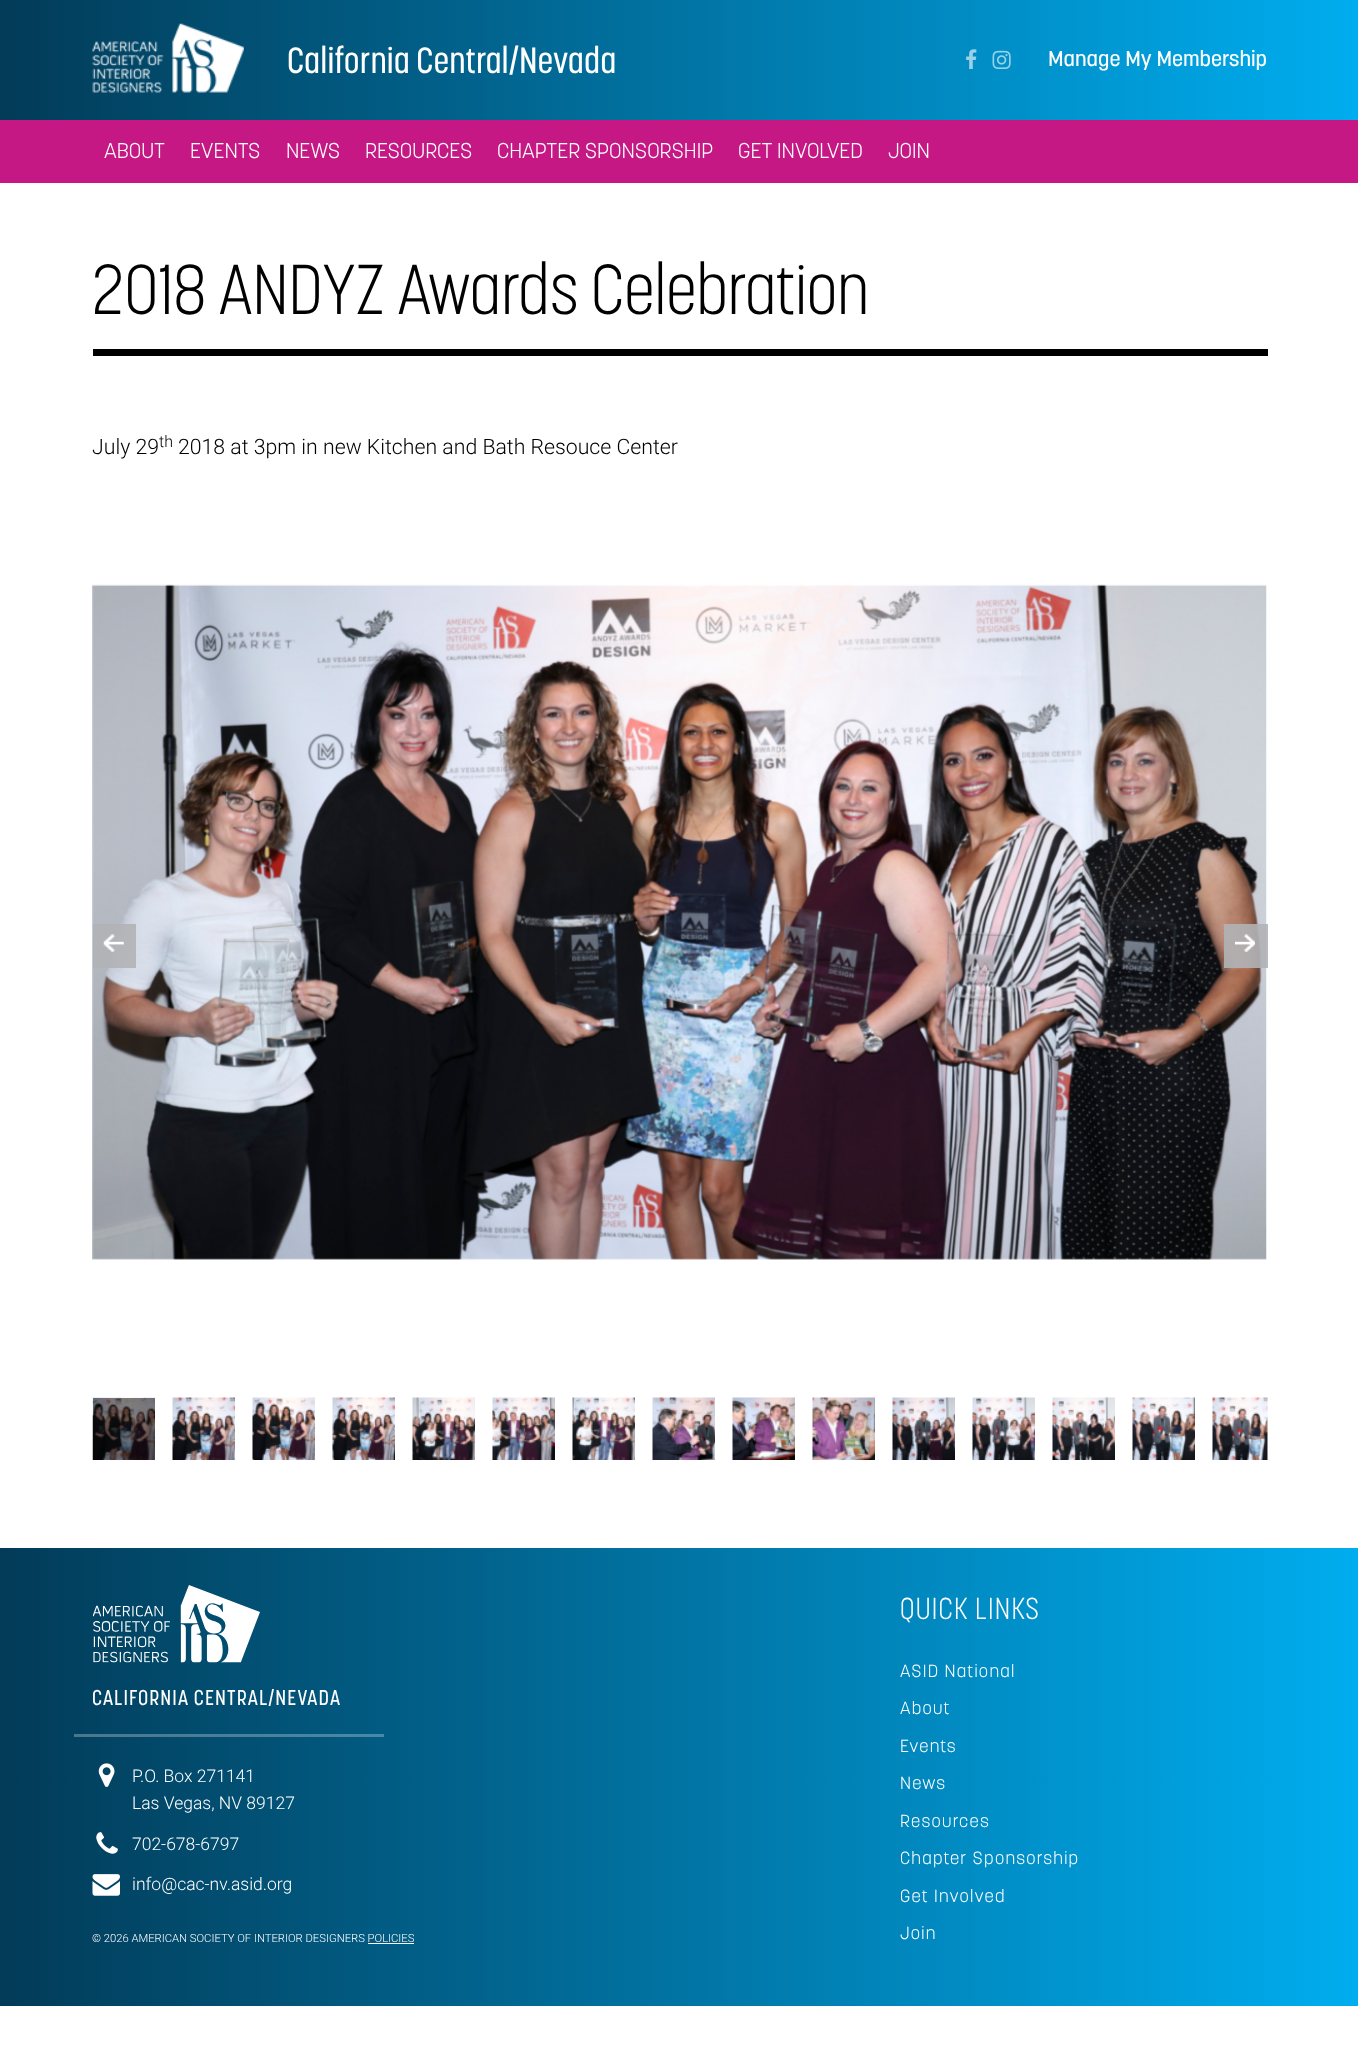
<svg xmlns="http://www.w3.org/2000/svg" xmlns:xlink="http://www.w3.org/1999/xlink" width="1358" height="2049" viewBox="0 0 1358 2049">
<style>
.cls-1{font:500 36.25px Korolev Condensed;fill:#ffffff}
.cls-2{font:500 21.25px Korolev;fill:#ffffff}
.cls-3{font:300 21.25px Korolev;fill:#ffffff}
.cls-4{font:300 70px Korolev Condensed;fill:#000000}
.cls-5{font:300 21.25px Roboto;fill:#000000}
.cls-6{font:300 16px Roboto;fill:#000000}
.cls-7{font:500 21.25px Korolev Condensed;letter-spacing:1.05px;fill:#ffffff}
.cls-8{font:300 17.5px Roboto;fill:#ffffff}
.cls-9{font:300 11.25px Roboto;fill:#ffffff}
.cls-10{font:300 30px Korolev Condensed;letter-spacing:1.25px;fill:#ffffff}
.cls-11{font:300 17.5px Korolev;letter-spacing:1.25px;fill:#ffffff}
</style>
<defs>
<linearGradient id="g1" gradientUnits="userSpaceOnUse" x1="0" y1="60" x2="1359" y2="60"><stop offset="0" stop-color="#023b58"/><stop offset="1" stop-color="#00adef"/></linearGradient>
<linearGradient id="g2" gradientUnits="userSpaceOnUse" x1="0" y1="1777" x2="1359" y2="1777"><stop offset="0" stop-color="#023b58"/><stop offset="1" stop-color="#00adef"/></linearGradient>
<linearGradient id="g3" gradientUnits="userSpaceOnUse" x1="0" y1="1777" x2="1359" y2="1777"><stop offset="0" stop-color="#497287"/><stop offset="1" stop-color="#47c4f3"/></linearGradient>
</defs>
<rect width="100%" height="100%" fill="#ffffff"/>
<rect fill="url(#g1)" x="0" y="0" width="1358" height="120"/>
<image xlink:href="image0.png" x="92" y="23" width="152" height="70"/>
<image xlink:href="image1.png" x="966" y="49" width="11" height="20"/>
<image xlink:href="image2.png" x="992" y="50" width="19" height="19"/>
<rect fill="#c51884" x="0" y="120" width="1358" height="63"/>
<rect fill="#000000" x="93" y="349" width="1175" height="7"/>
<image xlink:href="image3.png" x="92" y="584" width="1175" height="676"/>
<rect fill="#b1b3b6" fill-opacity="0.9" x="93" y="924" width="43" height="44"/>
<image xlink:href="image4.png" x="103" y="934" width="21" height="18"/>
<rect fill="#b1b3b6" fill-opacity="0.9" x="1224" y="924" width="44" height="44"/>
<image xlink:href="image5.png" x="1235" y="934" width="20" height="18"/>
<image xlink:href="image6.png" x="92" y="1397" width="63" height="63"/>
<image xlink:href="image7.png" x="172" y="1397" width="63" height="63"/>
<image xlink:href="image8.png" x="252" y="1397" width="63" height="63"/>
<image xlink:href="image9.png" x="332" y="1397" width="63" height="63"/>
<image xlink:href="image10.png" x="412" y="1397" width="63" height="63"/>
<image xlink:href="image11.png" x="492" y="1397" width="63" height="63"/>
<image xlink:href="image12.png" x="572" y="1397" width="63" height="63"/>
<image xlink:href="image13.png" x="652" y="1397" width="63" height="63"/>
<image xlink:href="image14.png" x="732" y="1397" width="63" height="63"/>
<image xlink:href="image15.png" x="812" y="1397" width="63" height="63"/>
<image xlink:href="image16.png" x="892" y="1397" width="63" height="63"/>
<image xlink:href="image17.png" x="972" y="1397" width="63" height="63"/>
<image xlink:href="image18.png" x="1052" y="1397" width="63" height="63"/>
<image xlink:href="image19.png" x="1132" y="1397" width="63" height="63"/>
<image xlink:href="image20.png" x="1212" y="1397" width="56" height="63"/>
<rect fill="url(#g2)" x="0" y="1548" width="1358" height="458"/>
<rect fill="url(#g3)" x="74" y="1734" width="310" height="3"/>
<image xlink:href="image21.png" x="93" y="1585" width="167" height="78"/>
<image xlink:href="image22.png" x="98" y="1763" width="17" height="24"/>
<image xlink:href="image23.png" x="96" y="1832" width="22" height="22"/>
<image xlink:href="image24.png" x="92" y="1874" width="28" height="22"/>
<rect fill="#ffffff" x="368" y="1943" width="46" height="1"/>
<text class="cls-1" x="287" y="73">California Central/Nevada</text>
<text class="cls-2" x="1048" y="66">Manage My Membership</text>
<text class="cls-3" x="104" y="158">ABOUT</text>
<text class="cls-3" x="190" y="158">EVENTS</text>
<text class="cls-3" x="286" y="158">NEWS</text>
<text class="cls-3" x="365" y="158">RESOURCES</text>
<text class="cls-3" x="497" y="158">CHAPTER SPONSORSHIP</text>
<text class="cls-3" x="738" y="158">GET INVOLVED</text>
<text class="cls-3" x="888" y="158">JOIN</text>
<text class="cls-4" x="92" y="314">2018 ANDYZ Awards Celebration</text>
<text class="cls-5" x="92" y="454">July 29</text>
<text class="cls-6" x="159" y="447">th</text>
<text class="cls-5" x="178" y="454">2018 at 3pm in new Kitchen and Bath Resouce Center</text>
<text class="cls-7" x="92" y="1705">CALIFORNIA CENTRAL/NEVADA</text>
<text class="cls-8"><tspan x="132" y="1782">P.O. Box 271141</tspan><tspan x="132" y="1809">Las Vegas, NV 89127</tspan></text>
<text class="cls-8" x="132" y="1850">702-678-6797</text>
<text class="cls-8" x="132" y="1890">info@cac-nv.asid.org</text>
<text class="cls-9" x="92" y="1942">© 2026 AMERICAN SOCIETY OF INTERIOR DESIGNERS POLICIES</text>
<text class="cls-10" x="900" y="1619">QUICK LINKS</text>
<text class="cls-11" x="900" y="1677">ASID National</text>
<text class="cls-11" x="900" y="1714">About</text>
<text class="cls-11" x="900" y="1752">Events</text>
<text class="cls-11" x="900" y="1789">News</text>
<text class="cls-11" x="900" y="1827">Resources</text>
<text class="cls-11" x="900" y="1864">Chapter Sponsorship</text>
<text class="cls-11" x="900" y="1902">Get Involved</text>
<text class="cls-11" x="900" y="1939">Join</text>
</svg>
